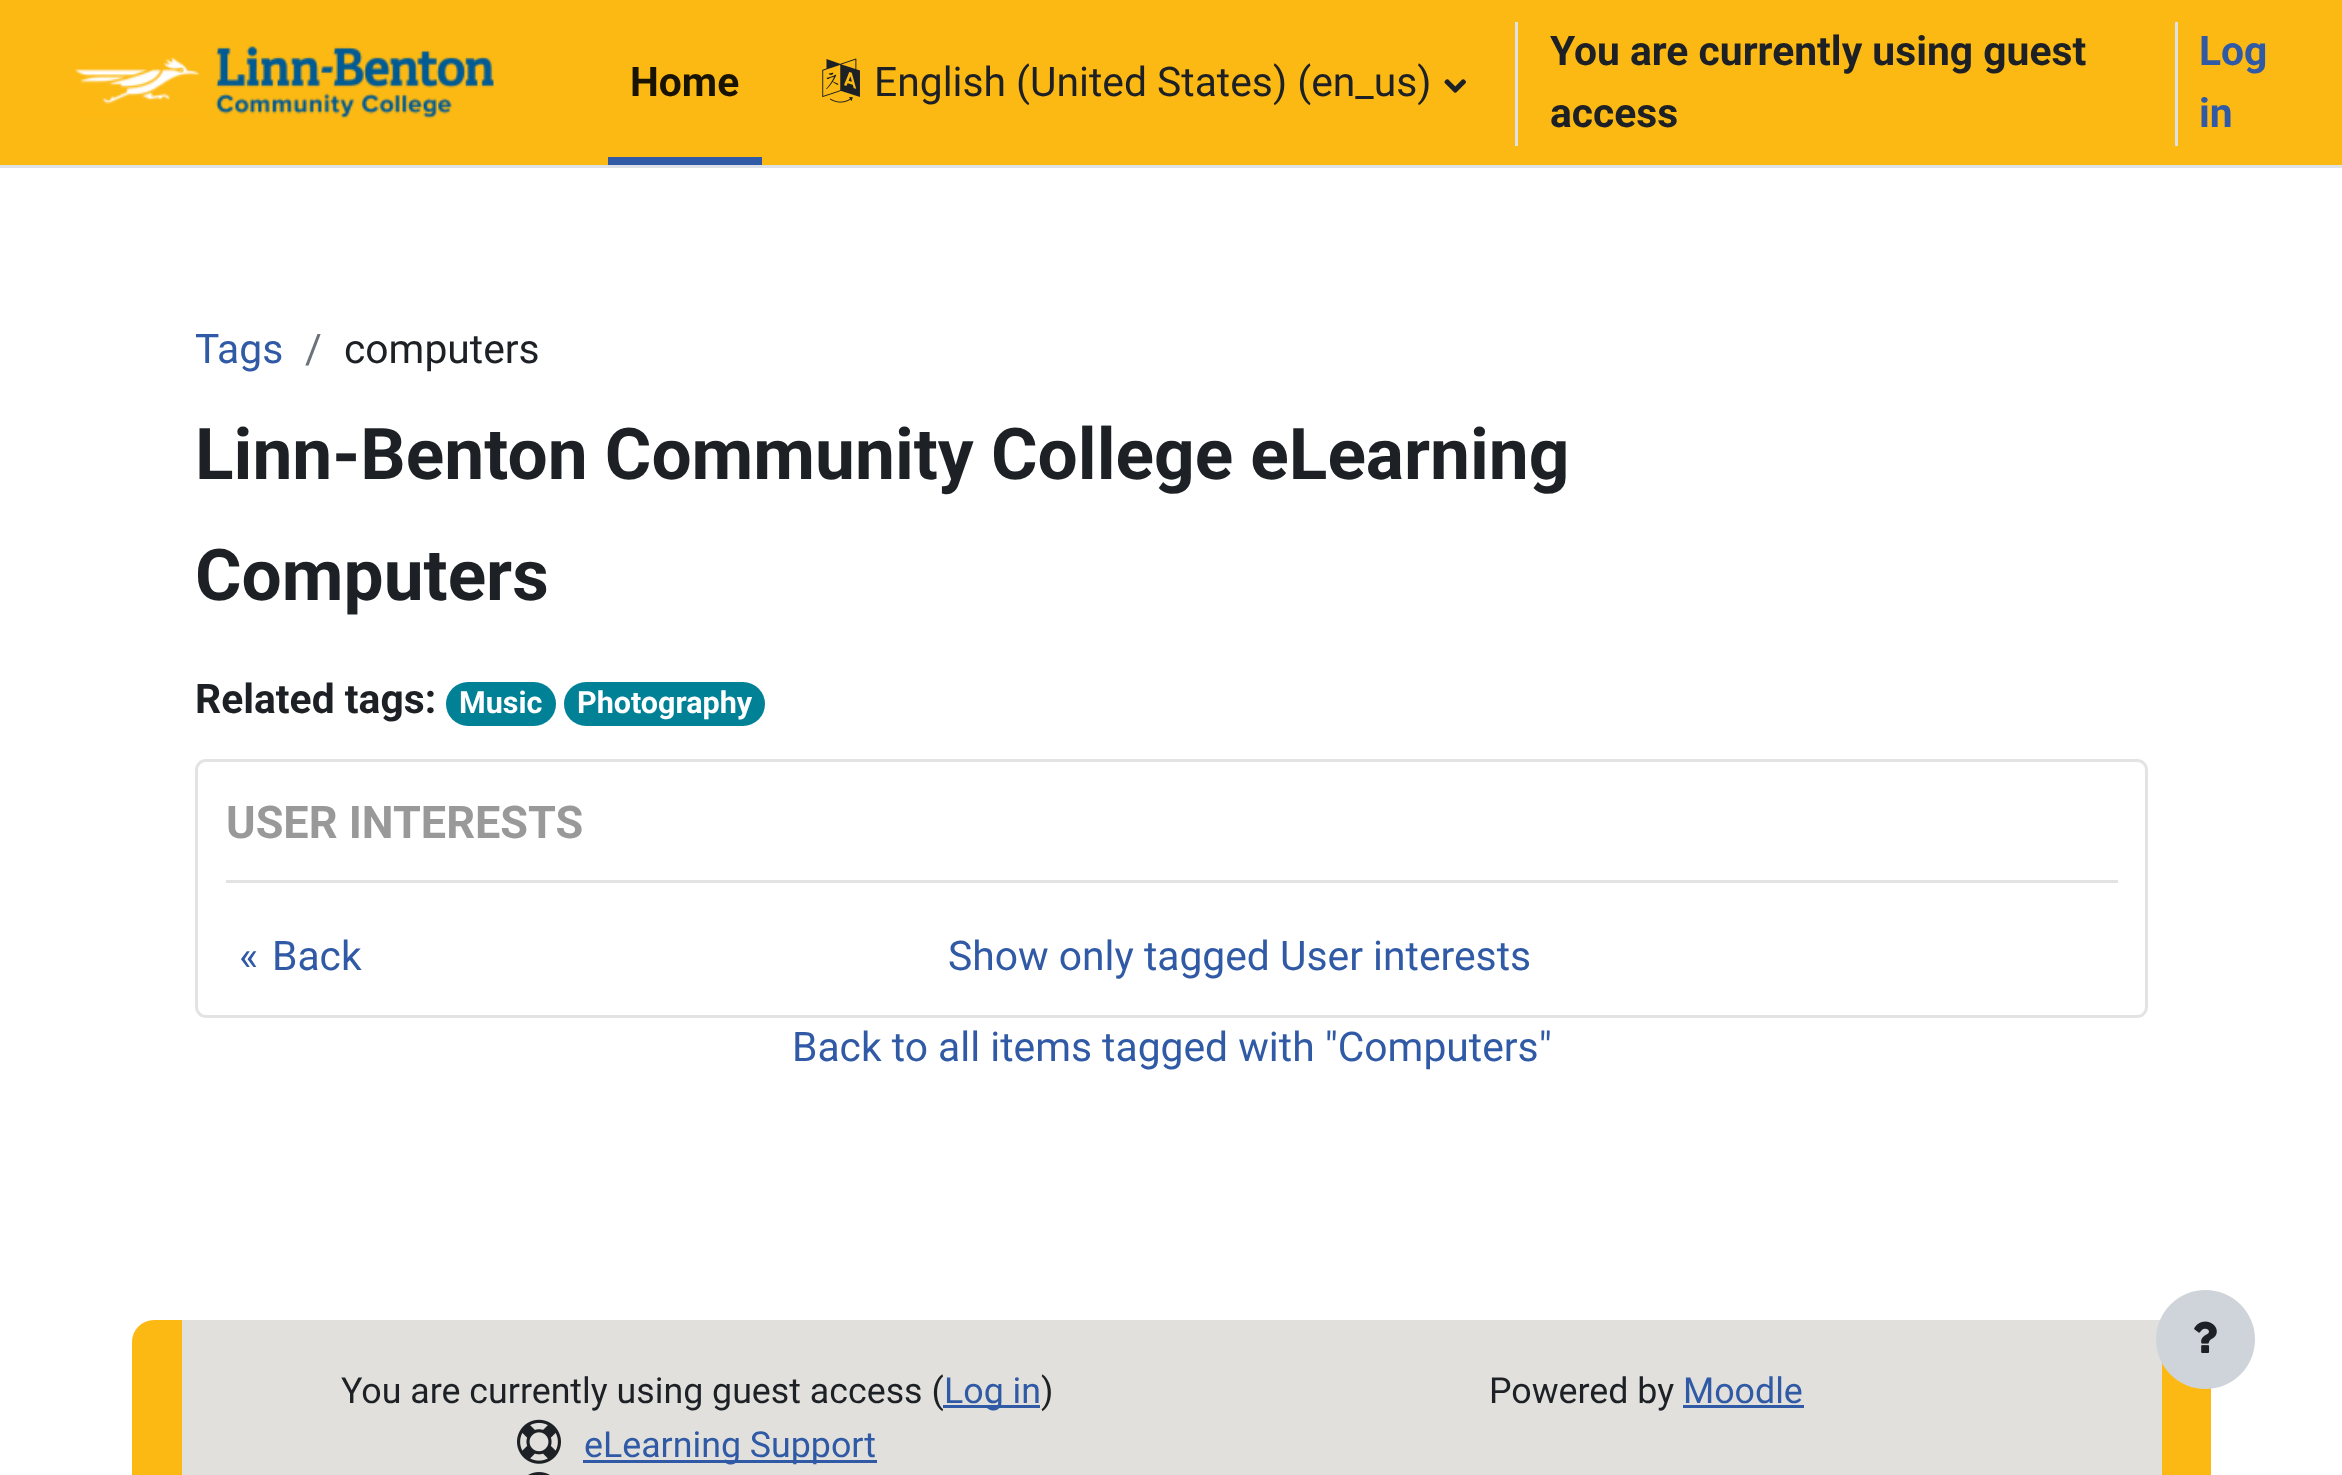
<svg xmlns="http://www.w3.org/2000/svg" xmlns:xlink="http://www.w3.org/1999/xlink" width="2342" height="1475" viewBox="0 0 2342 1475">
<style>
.cls-1{font:bold 40.8px Roboto;fill:#191302}
.cls-2{font:40.8px Roboto;fill:#1d2125}
.cls-3{font:bold 40.8px Roboto;fill:#1d2125}
.cls-4{font:bold 40.8px Roboto;fill:#305aa5}
.cls-5{font:40.8px Roboto;fill:#305aa5}
.cls-6{font:40.8px Roboto;fill:#6a737b}
.cls-7{font:bold 71.25px Roboto;fill:#1d2125}
.cls-8{font:bold 30.5px Roboto;fill:#ffffff}
.cls-9{font:bold 45px Roboto;fill:#999999}
.cls-10{font:35.75px Roboto;fill:#1d2125}
.cls-11{font:35.75px Roboto;fill:#305aa5}
</style>
<rect width="100%" height="100%" fill="#ffffff"/>
<rect fill="#fdb913" x="0" y="0" width="2342" height="165"/>
<rect fill="#dee2e6" x="0" y="165" width="2342" height="3"/>
<image xlink:href="image0.png" x="74" y="46" width="420" height="73"/>
<rect fill="#305aa5" x="608" y="157" width="154" height="8"/>
<image xlink:href="image1.png" x="822" y="58" width="38" height="45"/>
<image xlink:href="image2.png" x="1444" y="79" width="22" height="14"/>
<rect fill="#dee2e6" x="1515" y="22" width="3" height="124"/>
<rect fill="#dee2e6" x="2175" y="22" width="3" height="124"/>
<rect fill="#008196" x="446" y="682" width="110" height="44" rx="22"/>
<rect fill="#008196" x="564" y="682" width="201" height="44" rx="22"/>
<rect fill="none" stroke="#e3e3e3" stroke-width="3" x="196.5" y="760.5" width="1950" height="256" rx="9.5"/>
<rect fill="#e3e3e3" x="226" y="880" width="1892" height="3"/>
<rect fill="#fdb913" x="132" y="1320" width="2079" height="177" rx="22"/>
<rect fill="#e1e0dc" x="182" y="1320" width="1980" height="155"/>
<circle fill="#ced4da" cx="2205.5" cy="1339.5" r="49.5"/>
<image xlink:href="image3.png" x="2194" y="1321" width="23" height="32"/>
<image xlink:href="image4.png" x="517" y="1419" width="44" height="45"/>
<rect fill="#305aa5" x="583" y="1460" width="294" height="3"/>
<image xlink:href="image5.png" x="528" y="1472" width="22" height="3"/>
<rect fill="#305aa5" x="1683" y="1405" width="121" height="3"/>
<text class="cls-1" x="630" y="96">Home</text>
<text class="cls-2" x="874" y="96">English (United States) (en_us)</text>
<text class="cls-3" x="1550" y="65">You are currently using guest</text>
<text class="cls-4"><tspan x="2199" y="65">Log</tspan><tspan x="2199" y="127">in</tspan></text>
<text class="cls-3" x="1550" y="127">access</text>
<text class="cls-5" x="195" y="363">Tags</text>
<text class="cls-6" x="305" y="363">/</text>
<text class="cls-2" x="344" y="363">computers</text>
<text class="cls-7"><tspan x="195" y="479" word-spacing="-0.5">Linn-Benton Community College eLearning</tspan><tspan x="195" y="600">Computers</tspan></text>
<text class="cls-3" x="195" y="713">Related tags:</text>
<text class="cls-8" x="459" y="713">Music</text>
<text class="cls-8" x="577" y="713">Photography</text>
<text class="cls-9" x="226" y="838">USER INTERESTS</text>
<text class="cls-5" x="239" y="970">«</text>
<text class="cls-5" x="272" y="970">Back</text>
<text class="cls-5" x="948" y="970">Show only tagged User interests</text>
<text class="cls-5" x="792" y="1061">Back to all items tagged with "Computers"</text>
<text class="cls-10" x="341" y="1403">You are currently using guest access (</text>
<rect fill="#305aa5" x="943" y="1405" width="97" height="3"/>
<text class="cls-11" x="944" y="1403">Log in</text>
<text class="cls-10" x="1041" y="1403">)</text>
<text class="cls-11" x="584" y="1457">eLearning Support</text>
<text class="cls-10" x="1489" y="1403">Powered by</text>
<text class="cls-11" x="1683" y="1403">Moodle</text>
</svg>
